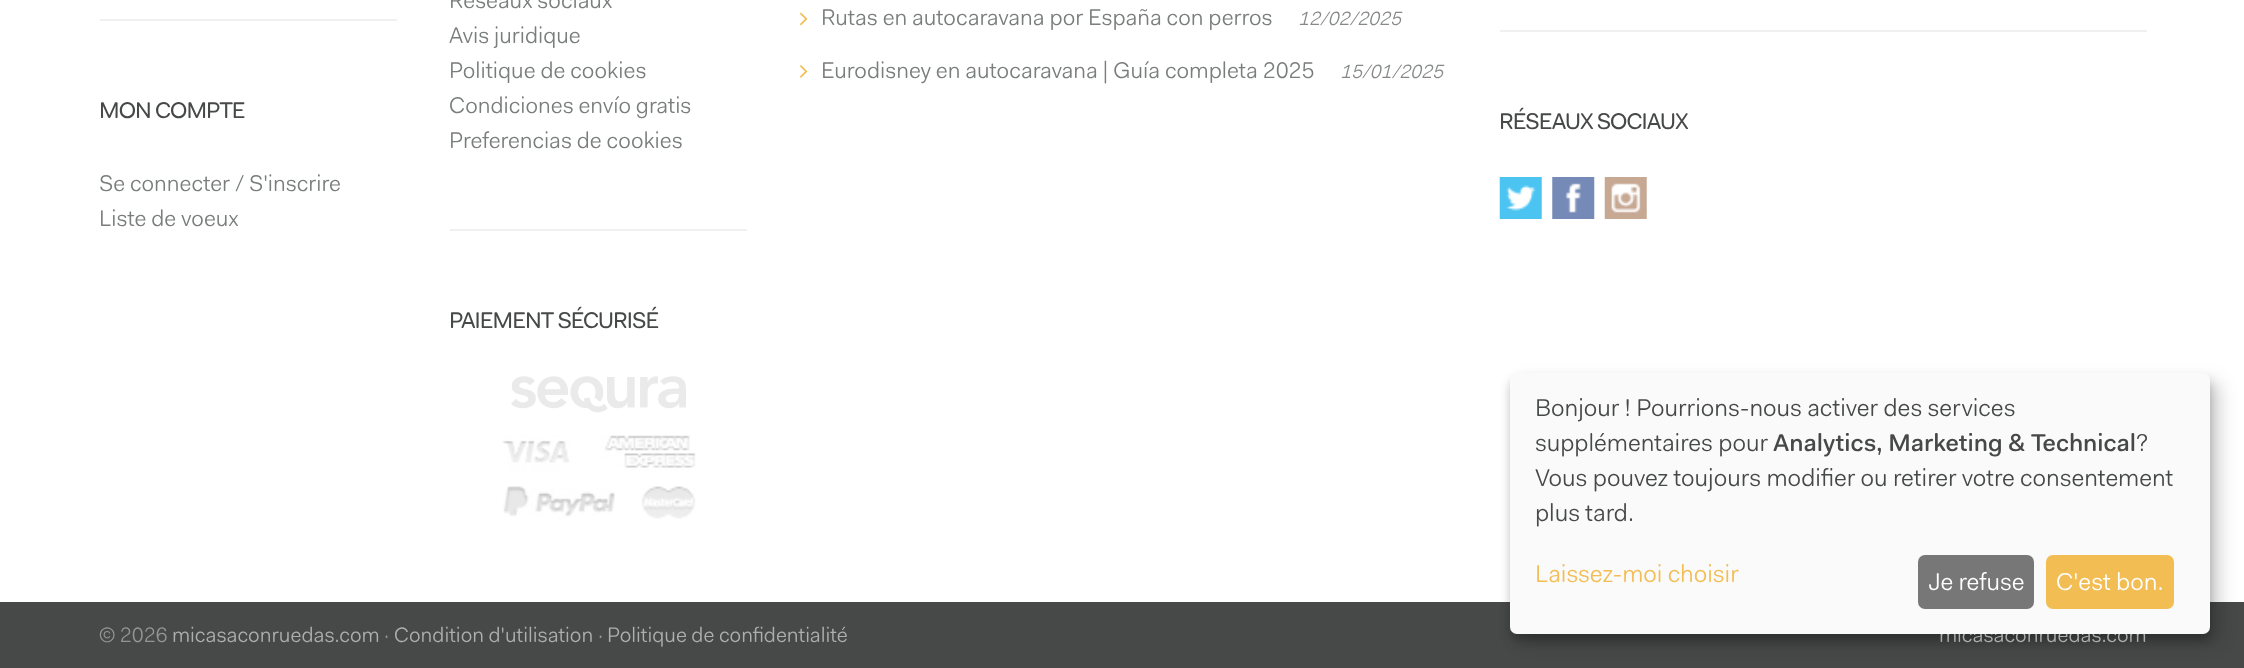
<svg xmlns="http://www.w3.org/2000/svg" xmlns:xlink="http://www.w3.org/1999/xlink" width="2244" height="668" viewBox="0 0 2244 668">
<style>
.cls-1{font:300 22.75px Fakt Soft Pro;fill:#797d7b}
.cls-2{font:22.75px Fakt Soft Pro;letter-spacing:-0.9px;fill:#474948}
.cls-3{font:italic 300 19.25px Fakt Soft Pro;fill:#868988}
.cls-4{font:300 21px Fakt Soft Pro;fill:#939694}
.cls-5{font:300 21px Fakt Soft Pro;fill:#adafae}
.cls-6{font:300 24.5px Fakt Soft Pro;fill:#474948}
.cls-7{font:500 24.5px Fakt Soft Pro;fill:#474948}
.cls-8{font:300 24.5px Fakt Soft Pro;fill:#f2bd53}
.cls-9{font:300 24.5px Fakt Soft Pro;fill:#ffffff}
</style>
<rect width="100%" height="100%" fill="#474948"/>
<rect fill="#ffffff" x="0" y="0" width="2244" height="602"/>
<rect fill="#f0f0f0" x="450" y="229" width="297" height="2"/>
<image xlink:href="image0.png" x="511" y="376" width="175" height="37"/>
<image xlink:href="image1.png" x="502" y="435" width="194" height="84"/>
<image xlink:href="image2.png" x="800" y="12" width="8" height="14"/>
<image xlink:href="image3.png" x="800" y="65" width="8" height="13"/>
<rect fill="#f0f0f0" x="100" y="19" width="297" height="2"/>
<rect fill="#f0f0f0" x="1500" y="30" width="647" height="2"/>
<image xlink:href="image4.png" x="1499" y="177" width="43" height="42"/>
<image xlink:href="image5.png" x="1552" y="177" width="43" height="42"/>
<image xlink:href="image6.png" x="1604" y="177" width="43" height="42"/>
<rect fill="#000000" fill-opacity="0.19" filter="blur(9px)" x="1519" y="382" width="700" height="260" rx="7"/>
<rect fill="#000000" fill-opacity="0.2" filter="blur(5px)" x="1510" y="380" width="700" height="261" rx="7"/>
<text class="cls-1"><tspan x="449" y="8">Réseaux sociaux</tspan><tspan x="449" y="43">Avis juridique</tspan><tspan x="449" y="78">Politique de cookies</tspan><tspan x="449" y="113">Condiciones envío gratis</tspan><tspan x="449" y="148">Preferencias de cookies</tspan></text>
<text class="cls-2" x="449" y="328">PAIEMENT SÉCURISÉ</text>
<text class="cls-1" x="821" y="25">Rutas en autocaravana por España con perros</text>
<text class="cls-3" x="1298" y="25">12/02/2025</text>
<text class="cls-1" x="821" y="78">Eurodisney en autocaravana | Guía completa 2025</text>
<text class="cls-3" x="1340" y="78">15/01/2025</text>
<text class="cls-2" x="99" y="118">MON COMPTE</text>
<text class="cls-1"><tspan x="99" y="191">Se connecter / S'inscrire</tspan><tspan x="99" y="226">Liste de voeux</tspan></text>
<text class="cls-2" x="1499" y="129">RÉSEAUX SOCIAUX</text>
<text class="cls-4" x="99" y="642">© 2026</text>
<text class="cls-5" x="172" y="642">micasaconruedas.com</text>
<text class="cls-4" x="384" y="642">·</text>
<text class="cls-5" x="394" y="642">Condition d'utilisation</text>
<text class="cls-4" x="598" y="642">·</text>
<text class="cls-5" x="607" y="642">Politique de confidentialité</text>
<text class="cls-5" x="1939" y="642">micasaconruedas.com</text>
<rect fill="#fafafa" x="1510" y="373" width="700" height="261" rx="7"/>
<text class="cls-6"><tspan x="1535" y="416">Bonjour ! Pourrions-nous activer des services</tspan><tspan x="1535" y="451">supplémentaires pour</tspan></text>
<text class="cls-7" x="1773" y="451">Analytics, Marketing &amp; Technical</text>
<text class="cls-6" x="2136" y="451">?</text>
<text class="cls-6"><tspan x="1535" y="486">Vous pouvez toujours modifier ou retirer votre consentement</tspan><tspan x="1535" y="521">plus tard.</tspan></text>
<text class="cls-8" x="1535" y="582">Laissez-moi choisir</text>
<rect fill="#777777" x="1918" y="555" width="116" height="54" rx="7"/>
<text class="cls-9" x="1928" y="590">Je refuse</text>
<rect fill="#f2bd53" x="2046" y="555" width="128" height="54" rx="7"/>
<text class="cls-9" x="2056" y="590">C'est bon.</text>
</svg>
